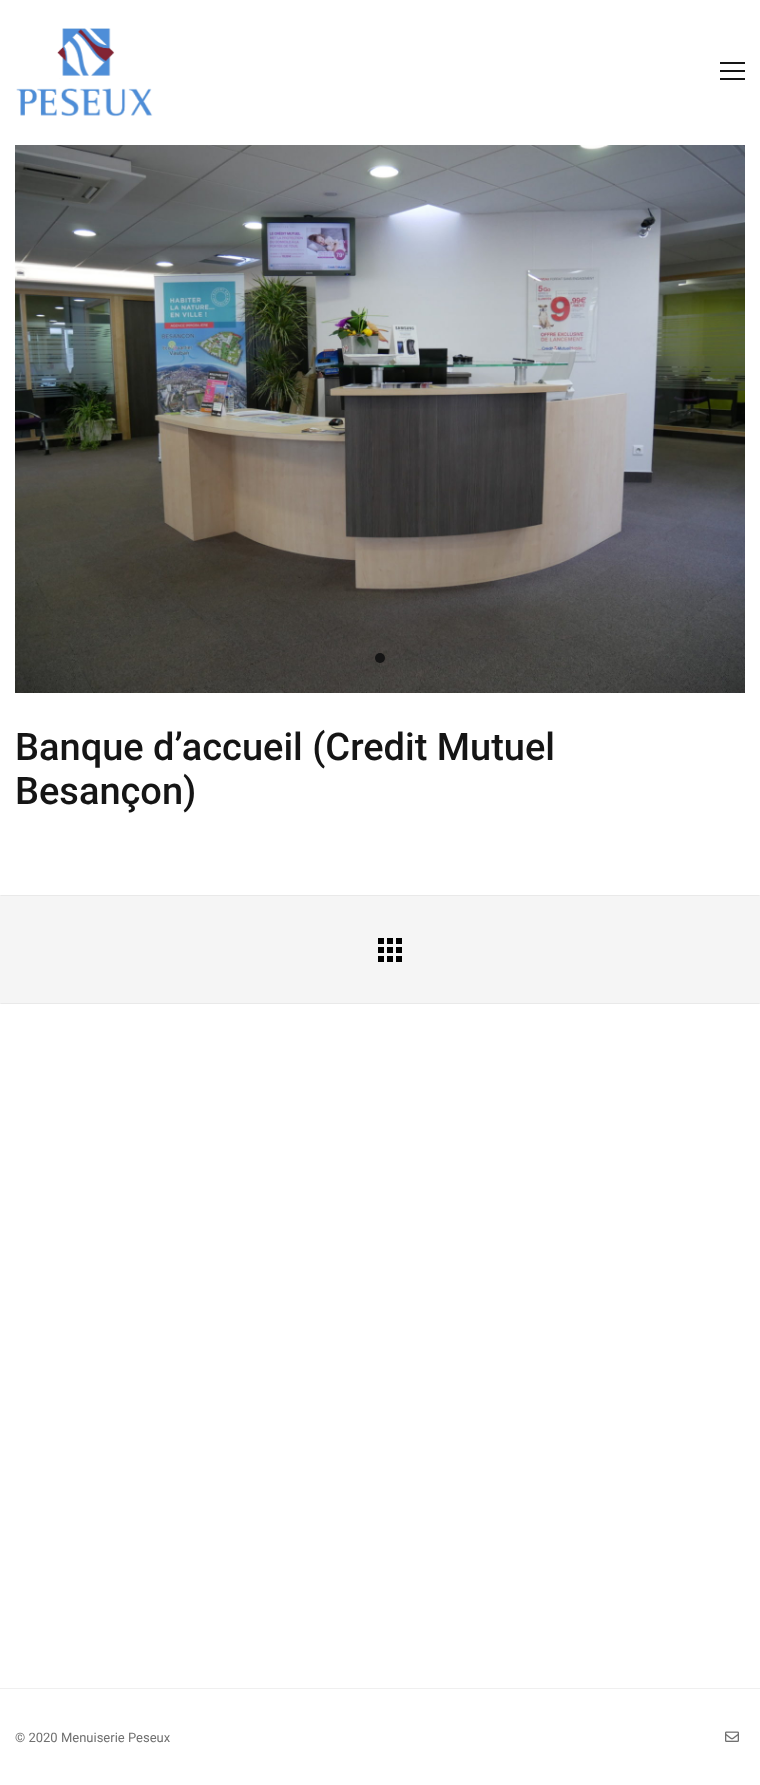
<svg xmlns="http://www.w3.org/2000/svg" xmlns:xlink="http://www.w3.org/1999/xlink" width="760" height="1785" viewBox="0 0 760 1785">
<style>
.cls-1{font:500 38px Roboto;fill:#151515}
.cls-2{font:13px Roboto;fill:#707070}
</style>
<rect width="100%" height="100%" fill="#ffffff"/>
<image xlink:href="image0.png" x="16" y="28" width="137" height="89"/>
<rect fill="#151515" x="720" y="70" width="25" height="2"/>
<rect fill="#151515" x="720" y="62" width="25" height="2"/>
<rect fill="#151515" x="720" y="78" width="25" height="2"/>
<image xlink:href="image1.png" x="15" y="145" width="730" height="548"/>
<circle fill="#151515" cx="380" cy="658" r="5"/>
<rect fill="#f5f5f5" x="0" y="895" width="760" height="109"/>
<path fill="#e9e9e9" d="M0 895H760L759 896H1Z"/>
<path fill="#e9e9e9" d="M760 1004H0L1 1003H759Z"/>
<image xlink:href="image2.png" x="378" y="938" width="24" height="24"/>
<rect fill="#efefef" x="0" y="1688" width="760" height="1"/>
<image xlink:href="image3.png" x="725" y="1731" width="14" height="11"/>
<text class="cls-1"><tspan x="15" y="760">Banque d’accueil (Credit Mutuel</tspan><tspan x="15" y="804">Besançon)</tspan></text>
<text class="cls-2" x="15" y="1742">© 2020 Menuiserie Peseux</text>
</svg>
